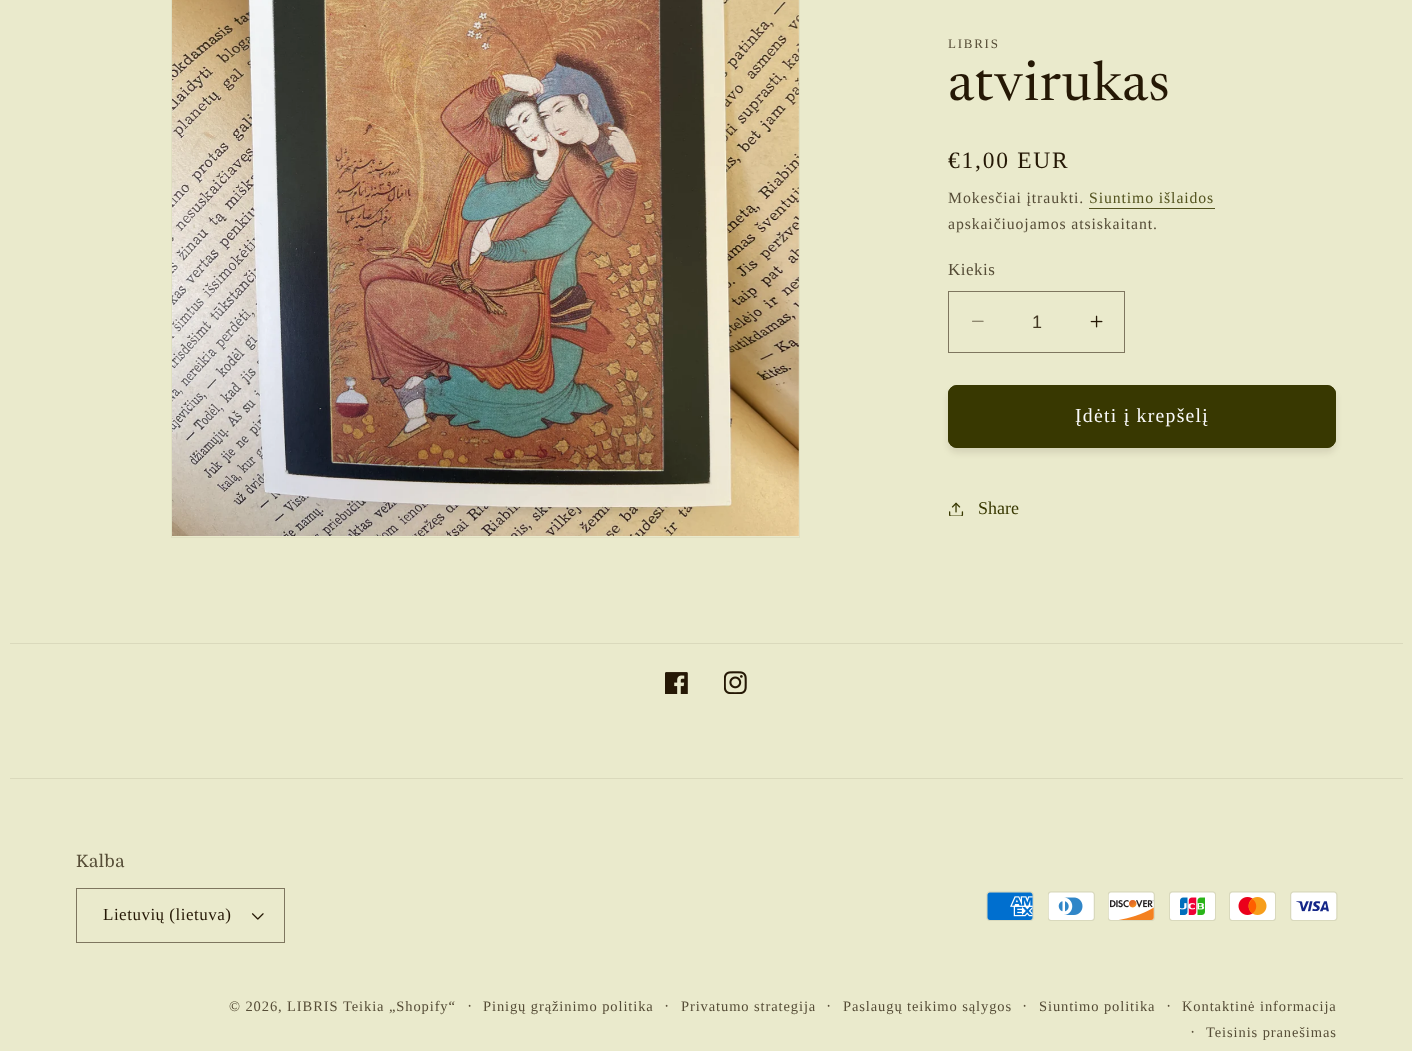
<svg xmlns="http://www.w3.org/2000/svg" xmlns:xlink="http://www.w3.org/1999/xlink" width="1412" height="1051" viewBox="0 0 1412 1051">
<style>
.cls-1{font:13px Liberation Serif;letter-spacing:1.75px;fill:#564d37}
.cls-2{font:55px Newsreader;letter-spacing:0.75px;fill:#251805}
.cls-3{font:23.5px Liberation Serif;letter-spacing:1.75px;fill:#251805}
.cls-4{font:15.75px Liberation Serif;letter-spacing:0.9px;fill:#564d37}
.cls-5{font:15.75px Liberation Serif;letter-spacing:0.9px;fill:#53531f}
.cls-6{font:17px Liberation Serif;letter-spacing:0.5px;fill:#564d37}
.cls-7{font:18px Liberation Sans;fill:#433823}
.cls-8{font:19.75px Liberation Serif;letter-spacing:1.25px;fill:#fafafa}
.cls-9{font:18px Liberation Serif;fill:#383801}
.cls-10{font:17px Domine;letter-spacing:0.5px;fill:#564d37}
.cls-11{font:17px Liberation Serif;letter-spacing:0.5px;fill:#251805}
.cls-12{font:14.5px Liberation Serif;letter-spacing:0.9px;fill:#564d37}
</style>
<rect width="100%" height="100%" fill="#eaeacc"/>
<rect fill="none" stroke="#e0e0c2" x="171.5" y="-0.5" width="628" height="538"/>
<image xlink:href="image0.png" x="172" y="0" width="627" height="536"/>
<rect fill="#53531f" x="1089" y="208" width="126" height="1"/>
<image xlink:href="image1.png" x="972" y="320" width="12" height="2"/>
<image xlink:href="image2.png" x="1090" y="315" width="13" height="13"/>
<rect fill="none" stroke="#7e765f" x="948.5" y="291.5" width="176" height="61"/>
<rect fill="#251805" fill-opacity="0.1" filter="blur(3px)" x="948" y="390" width="388" height="63" rx="9"/>
<rect fill="#383801" x="948" y="385" width="388" height="63" rx="9"/>
<rect fill="none" stroke="#383801" x="948.5" y="385.5" width="387" height="62" rx="8.5"/>
<image xlink:href="image3.png" x="949" y="502" width="15" height="14"/>
<rect fill="#dad9bc" x="10" y="643" width="1393" height="1"/>
<image xlink:href="image4.png" x="665" y="672" width="23" height="22"/>
<image xlink:href="image5.png" x="724" y="671" width="23" height="23"/>
<rect fill="#dad9bc" x="10" y="778" width="1393" height="1"/>
<image xlink:href="image6.png" x="251" y="913" width="13" height="7"/>
<rect fill="none" stroke="#7e765f" x="76.5" y="888.5" width="208" height="54"/>
<image xlink:href="image7.png" x="986" y="891" width="48" height="30"/>
<image xlink:href="image8.png" x="1048" y="891" width="47" height="30"/>
<image xlink:href="image9.png" x="1108" y="891" width="47" height="30"/>
<image xlink:href="image10.png" x="1169" y="891" width="47" height="30"/>
<image xlink:href="image11.png" x="1229" y="891" width="47" height="30"/>
<image xlink:href="image12.png" x="1290" y="891" width="48" height="30"/>
<text class="cls-1" x="948" y="48">LIBRIS</text>
<text class="cls-2" x="948" y="100">atvirukas</text>
<text class="cls-3" x="948" y="168">€1,00 EUR</text>
<text class="cls-4" x="948" y="203">Mokesčiai įtraukti.</text>
<text class="cls-5" x="1089" y="203">Siuntimo išlaidos</text>
<text class="cls-4" x="948" y="229">apskaičiuojamos atsiskaitant.</text>
<text class="cls-6" x="948" y="275">Kiekis</text>
<text class="cls-7" x="1032" y="328">1</text>
<text class="cls-8" x="1075" y="422">Įdėti į krepšelį</text>
<text class="cls-9" x="978" y="514">Share</text>
<text class="cls-10" x="76" y="867">Kalba</text>
<text class="cls-11" x="103" y="920">Lietuvių (lietuva)</text>
<text class="cls-12" x="229" y="1011">© 2026, LIBRIS</text>
<text class="cls-12" x="343" y="1011">Teikia „Shopify“</text>
<text class="cls-4" x="467" y="1011">·</text>
<text class="cls-12" x="483" y="1011">Pinigų grąžinimo politika</text>
<text class="cls-4" x="664" y="1011">·</text>
<text class="cls-12" x="681" y="1011">Privatumo strategija</text>
<text class="cls-4" x="826" y="1011">·</text>
<text class="cls-12" x="843" y="1011">Paslaugų teikimo sąlygos</text>
<text class="cls-4" x="1022" y="1011">·</text>
<text class="cls-12" x="1039" y="1011">Siuntimo politika</text>
<text class="cls-4" x="1166" y="1011">·</text>
<text class="cls-12" x="1182" y="1011">Kontaktinė informacija</text>
<text class="cls-4" x="1190" y="1037">·</text>
<text class="cls-12" x="1206" y="1037">Teisinis pranešimas</text>
</svg>
